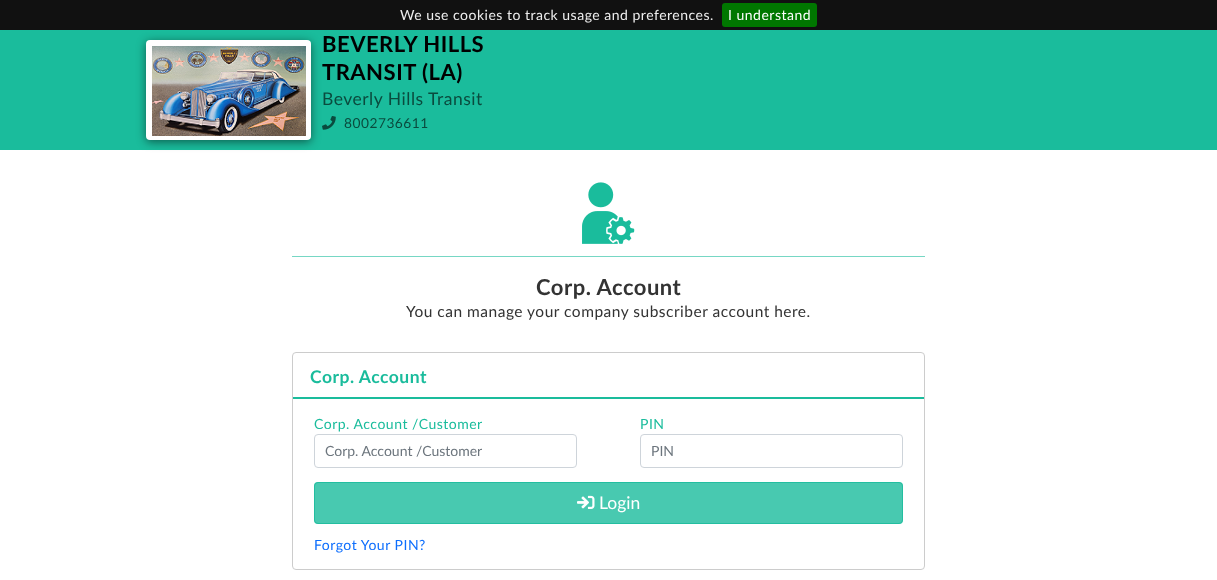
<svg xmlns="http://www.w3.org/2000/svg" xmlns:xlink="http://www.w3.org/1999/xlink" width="1217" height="580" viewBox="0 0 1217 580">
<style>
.cls-1{font:14px Lato;letter-spacing:0.5px;fill:#eeeeee}
.cls-2{font:14px Lato;letter-spacing:0.5px;fill:#ffffff}
.cls-3{font:bold 22px Lato;letter-spacing:0.5px;fill:#000000}
.cls-4{font:17.5px Lato;letter-spacing:0.5px;fill:#0a4b3e}
.cls-5{font:13.75px Lato;letter-spacing:0.5px;fill:#0a4b3e}
.cls-6{font:bold 22px Lato;letter-spacing:0.5px;fill:#333333}
.cls-7{font:15.5px Lato;letter-spacing:0.5px;fill:#333333}
.cls-8{font:bold 17.5px Lato;letter-spacing:0.5px;fill:#1abc9c}
.cls-9{font:14px Lato;letter-spacing:0.5px;fill:#1abc9c}
.cls-10{font:14px Lato;fill:#6c757d}
.cls-11{font:17.5px Lato;fill:#ffffff}
.cls-12{font:14px Lato;letter-spacing:0.5px;fill:#0d6efd}
</style>
<rect width="100%" height="100%" fill="#ffffff"/>
<rect fill="#111111" x="0" y="0" width="1217" height="30"/>
<rect fill="#007700" x="722" y="3" width="95" height="24" rx="3"/>
<rect fill="#1abc9c" x="0" y="30" width="1217" height="120"/>
<image xlink:href="image1.png" x="322" y="116" width="14" height="14"/>
<rect fill="#000000" fill-opacity="0.5" filter="blur(5px)" x="146" y="42" width="165" height="100" rx="4"/>
<rect fill="#ffffff" x="146" y="40" width="165" height="100" rx="4"/>
<image xlink:href="image0.png" x="152" y="46" width="154" height="90"/>
<image xlink:href="image2.png" x="582" y="182" width="53" height="62"/>
<rect fill="#76d7c4" x="292" y="256" width="633" height="1"/>
<rect fill="none" stroke="#cccccc" x="292.5" y="352.5" width="632" height="217" rx="3.5"/>
<rect fill="#1abc9c" x="293" y="397" width="631" height="2"/>
<rect fill="none" stroke="#ced4da" x="314.5" y="434.5" width="262" height="33" rx="3.5"/>
<rect fill="none" stroke="#ced4da" x="640.5" y="434.5" width="262" height="33" rx="3.5"/>
<rect fill="#48c9b0" x="314" y="482" width="589" height="42" rx="4"/>
<rect fill="none" stroke="#1abc9c" stroke-opacity="0.8" x="314.5" y="482.5" width="588" height="41" rx="3.5"/>
<image xlink:href="image3.png" x="577" y="495" width="18" height="14"/>
<text class="cls-1" x="400" y="20">We use cookies to track usage and preferences.</text>
<text class="cls-2" x="728" y="20">I understand</text>
<text class="cls-3"><tspan x="322" y="52">BEVERLY HILLS</tspan><tspan x="322" y="80">TRANSIT (LA)</tspan></text>
<text class="cls-4" x="322" y="105">Beverly Hills Transit</text>
<text class="cls-5" x="344" y="128">8002736611</text>
<text class="cls-6" x="536" y="295">Corp. Account</text>
<text class="cls-7" x="406" y="317">You can manage your company subscriber account here.</text>
<text class="cls-8" x="310" y="383">Corp. Account</text>
<text class="cls-9" x="314" y="429">Corp. Account /Customer</text>
<text class="cls-10" x="325" y="456">Corp. Account /Customer</text>
<text class="cls-9" x="640" y="429">PIN</text>
<text class="cls-10" x="651" y="456">PIN</text>
<text class="cls-11" x="599" y="509">Login</text>
<text class="cls-12" x="314" y="550">Forgot Your PIN?</text>
</svg>
